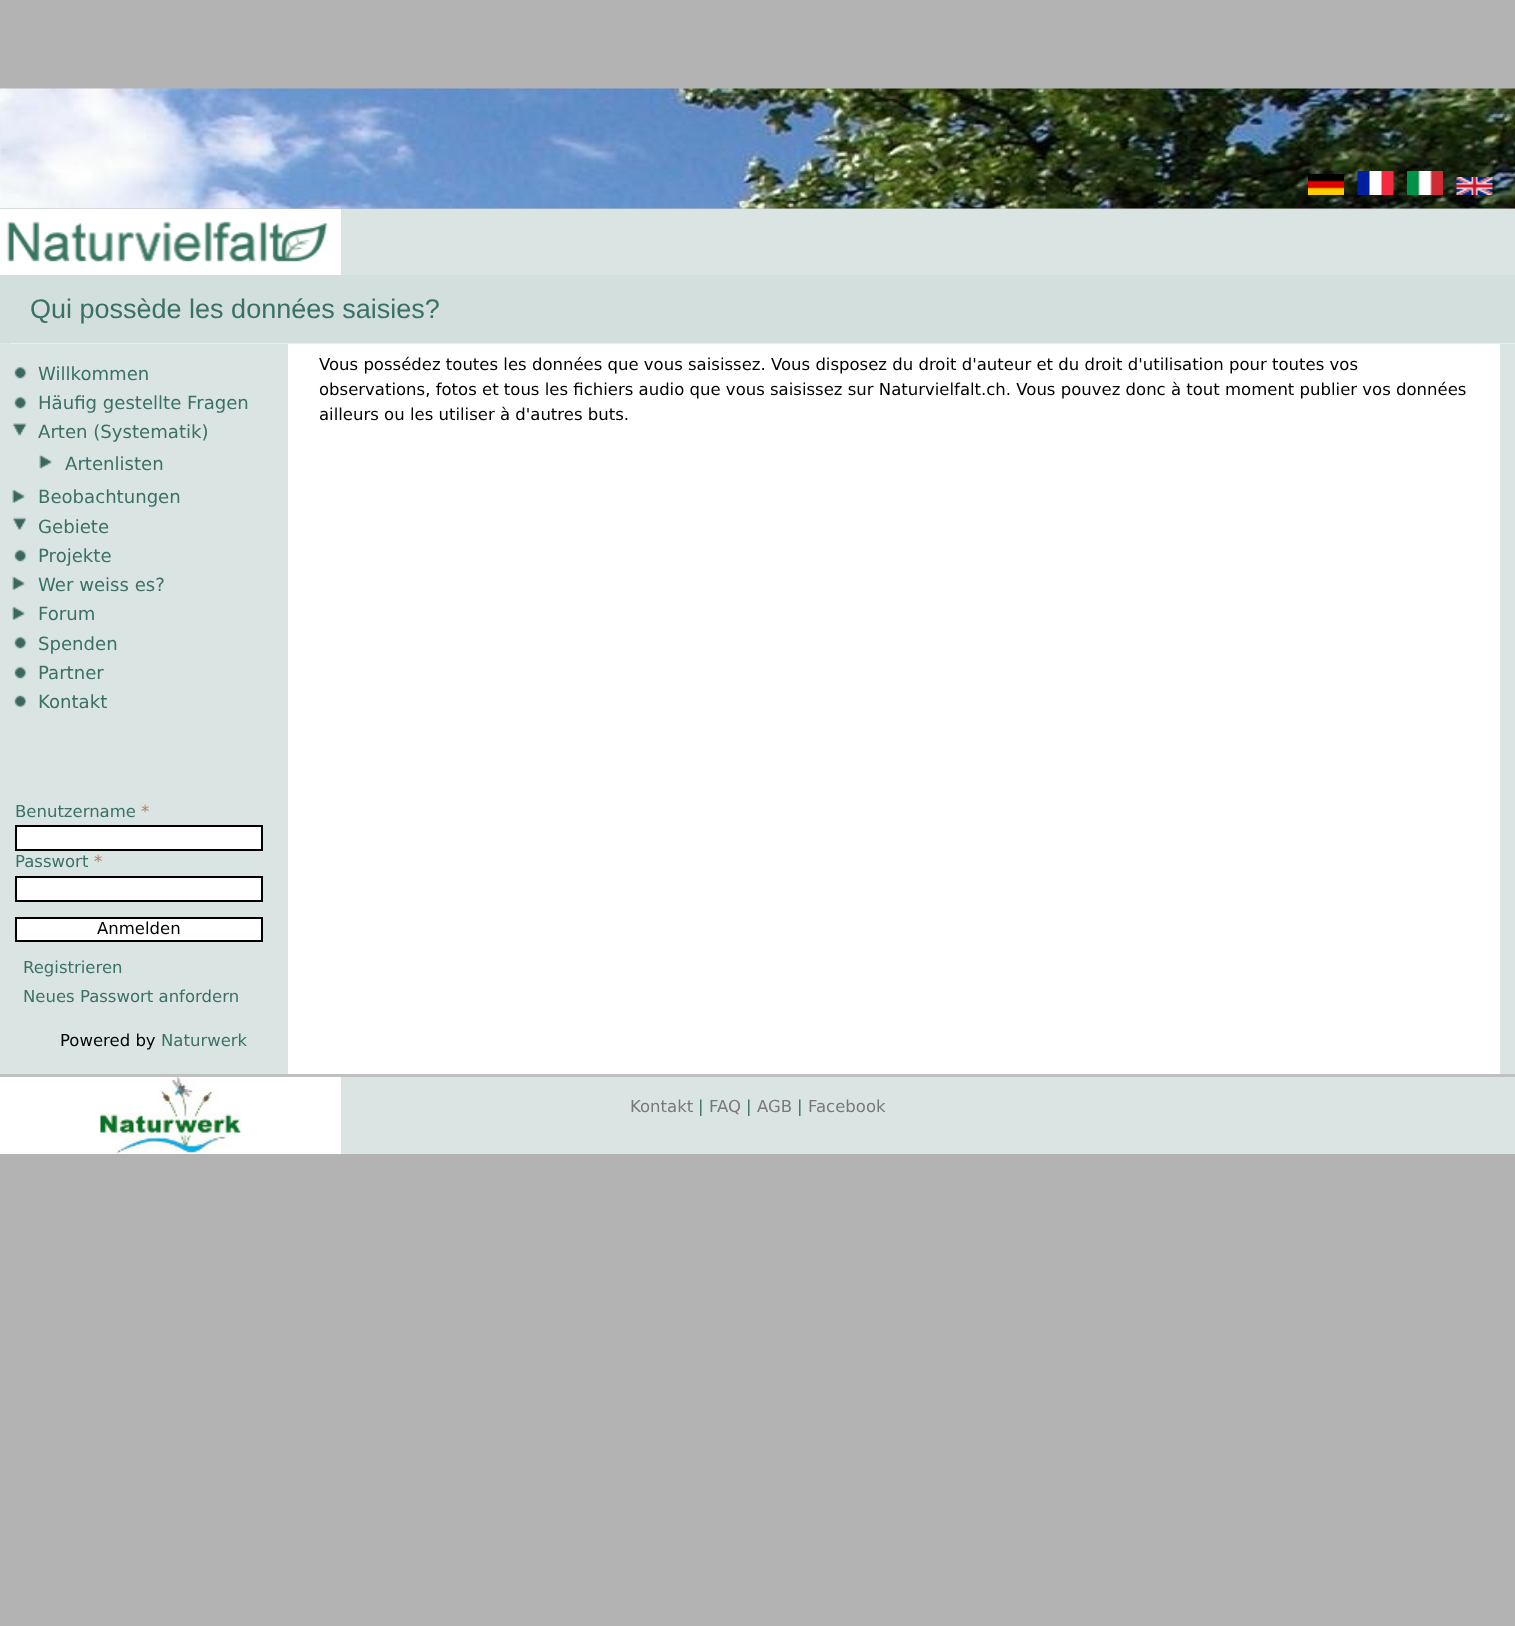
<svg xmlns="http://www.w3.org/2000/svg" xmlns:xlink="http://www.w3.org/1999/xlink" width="1515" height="1626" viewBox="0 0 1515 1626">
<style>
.cls-1{font:27px Liberation Sans;fill:#3b7066}
.cls-2{font:18.1px DejaVu Sans;fill:#3b7066}
.cls-3{font:16.5px DejaVu Sans;fill:#3b7066}
.cls-4{font:16.5px DejaVu Sans;fill:#b77c5c}
.cls-5{font:16.5px DejaVu Sans;fill:#000000}
.cls-6{font:16.5px DejaVu Sans;fill:#787878}
</style>
<rect width="100%" height="100%" fill="#b3b3b3"/>
<rect fill="#d2dfdc" x="0" y="275" width="1515" height="69"/>
<rect fill="#c0c0c0" x="0" y="208" width="1515" height="1"/>
<image xlink:href="image0.png" x="0" y="88" width="1515" height="121"/>
<image xlink:href="image1.png" x="1308" y="174" width="36" height="21"/>
<image xlink:href="image2.png" x="1357" y="171" width="37" height="24"/>
<image xlink:href="image3.png" x="1407" y="171" width="36" height="24"/>
<image xlink:href="image4.png" x="1456" y="177" width="37" height="18"/>
<rect fill="#dae5e3" x="341" y="209" width="1174" height="66"/>
<rect fill="#ffffff" x="0" y="209" width="341" height="66"/>
<image xlink:href="image5.png" x="7" y="221" width="321" height="41"/>
<image xlink:href="image6.png" x="0" y="343" width="1515" height="1"/>
<rect fill="#dae5e3" x="0" y="344" width="1515" height="730"/>
<image xlink:href="image7.png" x="14" y="366" width="13" height="13"/>
<image xlink:href="image7.png" x="14" y="396" width="13" height="13"/>
<image xlink:href="image8.png" x="13" y="423" width="14" height="13"/>
<image xlink:href="image9.png" x="39" y="454" width="13" height="15"/>
<image xlink:href="image10.png" x="12" y="489" width="13" height="14"/>
<image xlink:href="image11.png" x="13" y="517" width="14" height="13"/>
<image xlink:href="image7.png" x="14" y="549" width="13" height="13"/>
<image xlink:href="image10.png" x="12" y="576" width="13" height="14"/>
<image xlink:href="image10.png" x="12" y="606" width="13" height="14"/>
<image xlink:href="image7.png" x="14" y="636" width="13" height="13"/>
<image xlink:href="image7.png" x="14" y="666" width="13" height="13"/>
<image xlink:href="image12.png" x="14" y="695" width="13" height="13"/>
<rect fill="#ffffff" stroke="#000000" stroke-width="2" x="16" y="826" width="246" height="24"/>
<rect fill="#ffffff" stroke="#000000" stroke-width="2" x="16" y="877" width="246" height="24"/>
<rect fill="#ffffff" stroke="#000000" stroke-width="2" x="16" y="918" width="246" height="23"/>
<rect fill="#ffffff" x="288" y="344" width="1212" height="730"/>
<rect fill="#dae5e3" x="341" y="1077" width="1174" height="77"/>
<rect fill="#c0c0c0" x="0" y="1074" width="1515" height="3"/>
<rect fill="#ffffff" x="0" y="1077" width="341" height="77"/>
<image xlink:href="image13.png" x="99" y="1077" width="143" height="77"/>
<text class="cls-1" x="30" y="318">Qui possède les données saisies?</text>
<text class="cls-2"><tspan x="38" y="380">Willkommen</tspan><tspan x="38" y="409">Häufig gestellte Fragen</tspan><tspan x="38" y="438">Arten (Systematik)</tspan></text>
<text class="cls-2" x="65" y="470">Artenlisten</text>
<text class="cls-2"><tspan x="38" y="503">Beobachtungen</tspan><tspan x="38" y="533">Gebiete</tspan><tspan x="38" y="562">Projekte</tspan><tspan x="38" y="591">Wer weiss es?</tspan><tspan x="38" y="620">Forum</tspan><tspan x="38" y="650">Spenden</tspan><tspan x="38" y="679">Partner</tspan><tspan x="38" y="708">Kontakt</tspan></text>
<text class="cls-3" x="15" y="817">Benutzername</text>
<text class="cls-4" x="141" y="817">*</text>
<text class="cls-3" x="15" y="867">Passwort</text>
<text class="cls-4" x="94" y="867">*</text>
<text class="cls-5" x="97" y="934">Anmelden</text>
<text class="cls-3"><tspan x="23" y="973">Registrieren</tspan><tspan x="23" y="1002">Neues Passwort anfordern</tspan></text>
<text class="cls-5" x="60" y="1046">Powered by</text>
<text class="cls-3" x="161" y="1046">Naturwerk</text>
<text class="cls-5"><tspan x="319" y="370">Vous possédez toutes les données que vous saisissez. Vous disposez du droit d'auteur et du droit d'utilisation pour toutes vos</tspan><tspan x="319" y="395">observations, fotos et tous les fichiers audio que vous saisissez sur Naturvielfalt.ch. Vous pouvez donc à tout moment publier vos données</tspan><tspan x="319" y="420">ailleurs ou les utiliser à d'autres buts.</tspan></text>
<text class="cls-6" x="630" y="1112">Kontakt</text>
<text class="cls-3" x="698" y="1112">|</text>
<text class="cls-6" x="709" y="1112">FAQ</text>
<text class="cls-3" x="746" y="1112">|</text>
<text class="cls-6" x="757" y="1112">AGB</text>
<text class="cls-3" x="797" y="1112">|</text>
<text class="cls-6" x="808" y="1112">Facebook</text>
</svg>
